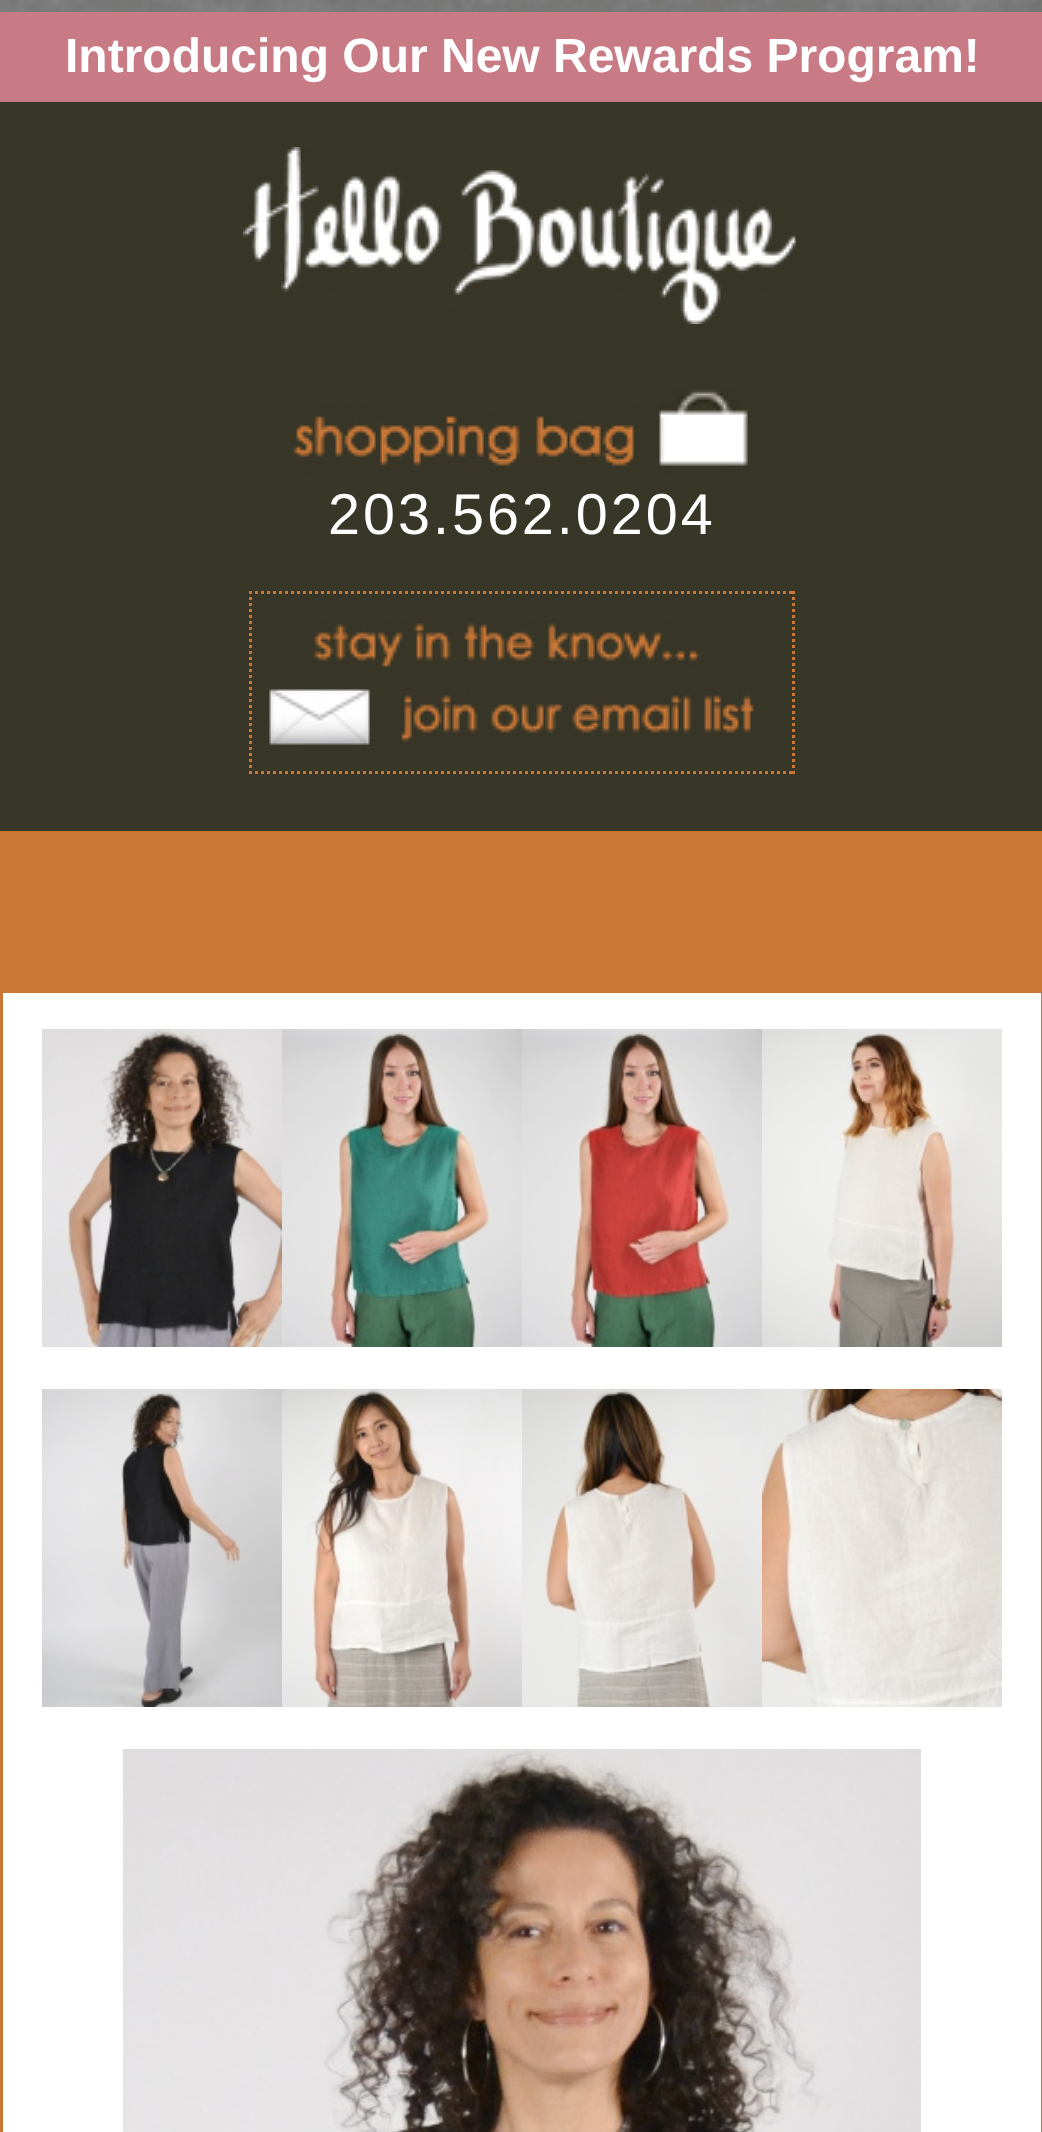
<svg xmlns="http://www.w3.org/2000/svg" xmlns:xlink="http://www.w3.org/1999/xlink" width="1042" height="2132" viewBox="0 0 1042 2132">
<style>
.cls-1{font:bold 48px Liberation Sans;fill:#ffffff}
.cls-2{font:57.5px Liberation Sans;letter-spacing:3px;fill:#ffffff}
</style>
<rect width="100%" height="100%" fill="#ffffff"/>
<image xlink:href="image0.png" x="0" y="0" width="1042" height="12"/>
<rect fill="#c87b84" x="0" y="12" width="1042" height="90"/>
<rect fill="#373627" x="0" y="102" width="1042" height="729"/>
<image xlink:href="image1.png" x="243" y="147" width="553" height="177"/>
<image xlink:href="image2.png" x="293" y="389" width="455" height="88"/>
<path fill="none" stroke="#c97737" stroke-width="3" stroke-dasharray="3 3" d="M249 592.5H795"/>
<path fill="none" stroke="#c97737" stroke-width="3" stroke-dasharray="3 3" d="M249 772.5H795"/>
<path fill="none" stroke="#c97737" stroke-width="3" stroke-dasharray="3 3" d="M250.5 591V774"/>
<image xlink:href="image3.png" x="269" y="619" width="485" height="127"/>
<path fill="none" stroke="#c97737" stroke-width="3" stroke-dasharray="3 3" d="M793.5 591V774"/>
<rect fill="#c97737" x="0" y="831" width="1042" height="162"/>
<rect fill="#c97737" x="1041" y="993" width="1" height="1139"/>
<rect fill="#c97737" x="0" y="993" width="3" height="1139"/>
<image xlink:href="image4.png" x="42" y="1029" width="240" height="318"/>
<image xlink:href="image5.png" x="282" y="1029" width="240" height="318"/>
<image xlink:href="image6.png" x="522" y="1029" width="240" height="318"/>
<image xlink:href="image7.png" x="762" y="1029" width="240" height="318"/>
<image xlink:href="image8.png" x="42" y="1389" width="240" height="318"/>
<image xlink:href="image9.png" x="282" y="1389" width="240" height="318"/>
<image xlink:href="image10.png" x="522" y="1389" width="240" height="318"/>
<image xlink:href="image11.png" x="762" y="1389" width="240" height="318"/>
<image xlink:href="image12.png" x="123" y="1749" width="798" height="383"/>
<text class="cls-1" x="65" y="72">Introducing Our New Rewards Program!</text>
<text class="cls-2" x="328" y="534">203.562.0204</text>
</svg>
